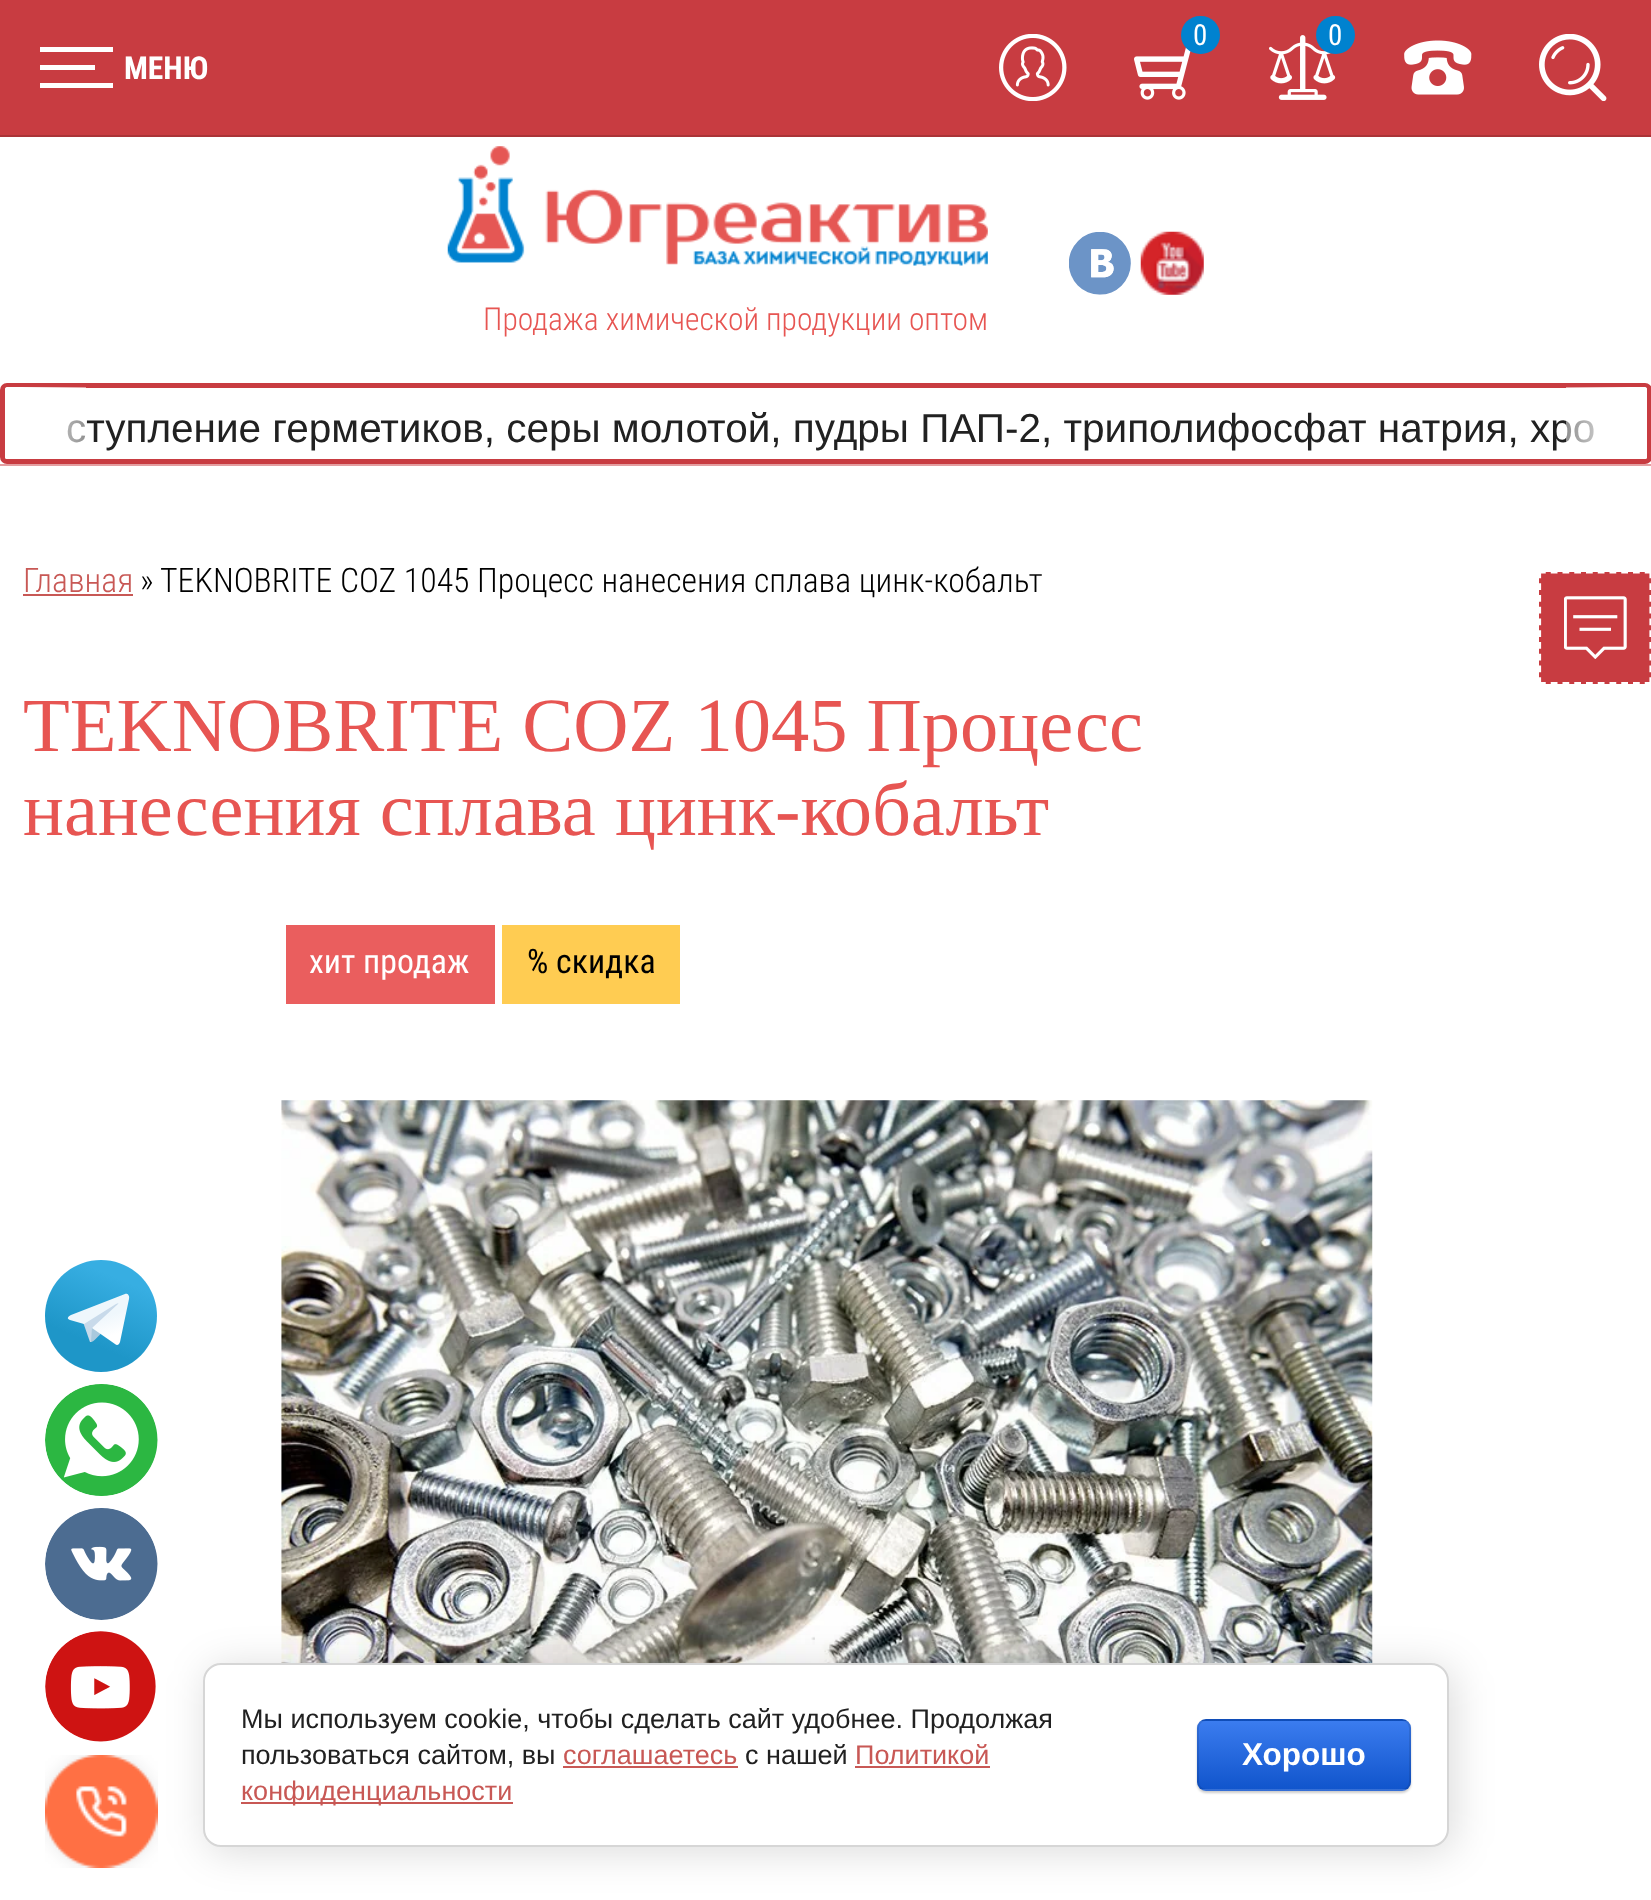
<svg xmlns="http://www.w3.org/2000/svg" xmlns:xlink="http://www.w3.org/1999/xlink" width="1651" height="1900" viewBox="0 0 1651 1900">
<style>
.cls-1{font:29px Roboto Condensed;fill:#ffffff}
.cls-2{font:bold 31.5px Roboto Condensed;fill:#ffffff}
.cls-3{font:300 31.5px Roboto Condensed;fill:#e75552}
.cls-4{font:40.5px Liberation Sans;fill:#212121}
.cls-5{font:300 33.75px Roboto Condensed;fill:#c85855}
.cls-6{font:300 33.75px Roboto Condensed;fill:#000000}
.cls-7{font:76.5px Liberation Serif;fill:#e75552}
.cls-8{font:33.75px Roboto Condensed;fill:#ffffff}
.cls-9{font:33.75px Roboto Condensed;fill:#000000}
.cls-10{font:27px Liberation Sans;fill:#212121}
.cls-11{font:27px Liberation Sans;fill:#c85855}
.cls-12{font:bold 31.5px Liberation Sans;fill:#ffffff}
</style>
<defs>
<linearGradient id="g1" gradientUnits="userSpaceOnUse" x1="120" y1="1279" x2="92" y2="1344"><stop offset="0" stop-color="#37aee2"/><stop offset="1" stop-color="#1e96c8"/></linearGradient>
<linearGradient id="g2" gradientUnits="userSpaceOnUse" x1="105" y1="1316" x2="111" y2="1336"><stop offset="0" stop-color="#eff7fc"/><stop offset="1" stop-color="#ffffff"/></linearGradient>
<clipPath id="clip1"><rect x="1197" y="1719" width="214" height="72" rx="9"/></clipPath>
<linearGradient id="g3" gradientUnits="userSpaceOnUse" x1="1304" y1="1654" x2="1304" y2="1721"><stop offset="0" stop-color="#3b7cef"/><stop offset="1" stop-color="#1155cc"/></linearGradient>
<linearGradient id="g4" gradientUnits="userSpaceOnUse" x1="1304" y1="1721" x2="1304" y2="1789"><stop offset="0" stop-color="#3b7cef"/><stop offset="1" stop-color="#1155cc"/></linearGradient>
<linearGradient id="g5" gradientUnits="userSpaceOnUse" x1="1304" y1="1789" x2="1304" y2="1856"><stop offset="0" stop-color="#3b7cef"/><stop offset="1" stop-color="#1155cc"/></linearGradient>
<linearGradient id="g6" gradientUnits="userSpaceOnUse" x1="22" y1="428" x2="86" y2="428"><stop offset="0" stop-color="#ffffff"/><stop offset="1" stop-color="#ffffff" stop-opacity="0"/></linearGradient>
<linearGradient id="g7" gradientUnits="userSpaceOnUse" x1="1566" y1="428" x2="1629" y2="428"><stop offset="0" stop-color="#ffffff" stop-opacity="0"/><stop offset="1" stop-color="#ffffff"/></linearGradient>
</defs>
<rect width="100%" height="100%" fill="#ffffff"/>
<rect fill="#c83c41" x="0" y="0" width="1651" height="135"/>
<rect fill="#aa3337" x="0" y="135" width="1651" height="2"/>
<image xlink:href="image0.png" x="999" y="34" width="68" height="67"/>
<image xlink:href="image1.png" x="1134" y="47" width="57" height="53"/>
<rect fill="#0082cf" x="1181" y="16" width="39" height="38" rx="19"/>
<image xlink:href="image2.png" x="1269" y="35" width="67" height="65"/>
<rect fill="#0082cf" x="1316" y="16" width="39" height="38" rx="19"/>
<image xlink:href="image3.png" x="1404" y="40" width="68" height="55"/>
<image xlink:href="image4.png" x="1539" y="34" width="68" height="67"/>
<path fill="#ffffff" d="M40 47H113V52H40ZM40 65H95V70H40ZM40 83H113V88H40Z"/>
<rect fill="#e49ea0" x="0" y="464" width="1651" height="2"/>
<image xlink:href="image5.png" x="1069" y="232" width="62" height="63"/>
<image xlink:href="image6.png" x="1140" y="231" width="64" height="64"/>
<image xlink:href="image7.png" x="447" y="146" width="541" height="120"/>
<rect fill="none" stroke="#c83c41" stroke-width="5" x="2.5" y="385.5" width="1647" height="76" rx="4.5"/>
<rect fill="#c85855" x="23" y="594" width="110" height="2"/>
<rect fill="#ea5e5e" x="286" y="925" width="209" height="79"/>
<rect fill="#ffcc52" x="502" y="925" width="178" height="79"/>
<image xlink:href="image8.png" x="281" y="1100" width="1092" height="563"/>
<rect fill="#c83c41" x="1539" y="572" width="112" height="112"/>
<path fill="none" stroke="#ffffff" stroke-width="2.2" stroke-dasharray="6.75 5" d="M1539 572.5H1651.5"/>
<path fill="none" stroke="#ffffff" stroke-width="2.2" stroke-dasharray="6.75 5" d="M1650.5 571.5V684"/>
<path fill="none" stroke="#ffffff" stroke-width="2.2" stroke-dasharray="6.75 5" d="M1539 683H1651.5"/>
<path fill="none" stroke="#ffffff" stroke-width="2.2" stroke-dasharray="6.75 5" d="M1540 571.5V684"/>
<image xlink:href="image9.png" x="1564" y="596" width="63" height="63"/>
<path fill="url(#g1)" d="M157 1316C157 1285 132 1260 101 1260C70 1260 45 1285 45 1316C45 1347 70 1372 101 1372C132 1372 157 1347 157 1316Z"/>
<path fill="#c8daea" fill-rule="evenodd" d="M91 1342H90L83 1322L125 1298"/>
<path fill="#a9c9dd" fill-rule="evenodd" d="M91 1342C93.5 1342 99.5 1335 101 1333.5L92 1327.5"/>
<path fill="url(#g2)" fill-rule="evenodd" d="M92 1328L115 1344C117 1346 119 1345 120 1342L129 1299C130 1295 127 1293 125 1294L71 1315C67 1317 67 1319 70 1320L84 1324L116 1304C118 1303 119 1303 118 1304"/>
<image xlink:href="image10.png" x="45" y="1384" width="113" height="112"/>
<image xlink:href="image11.png" x="45" y="1508" width="113" height="112"/>
<image xlink:href="image12.png" x="45" y="1631" width="111" height="111"/>
<image xlink:href="image13.png" x="45" y="1755" width="113" height="113"/>
<rect fill="#000000" fill-opacity="0.14" filter="blur(20px)" x="207" y="1667" width="1247" height="185" rx="18"/>
<rect fill="#ffffff" stroke="#d6d6d6" stroke-width="2" x="204" y="1664" width="1244" height="182" rx="17"/>
<rect fill="#c85855" x="563" y="1766" width="175" height="2"/>
<rect fill="#c85855" x="855" y="1766" width="135" height="2"/>
<rect fill="#c85855" x="241" y="1802" width="272" height="2"/>
<rect fill="#000000" fill-opacity="0.2" filter="blur(1px)" x="1197" y="1721" width="214" height="72" rx="9"/>
<g clip-path="url(#clip1)">
<rect fill="url(#g3)" x="1197" y="1719" width="214" height="2"/>
<rect fill="url(#g4)" x="1197" y="1721" width="214" height="68"/>
<rect fill="url(#g5)" x="1197" y="1789" width="214" height="2"/>
</g>
<rect fill="none" stroke="#000000" stroke-opacity="0.1" stroke-width="2" x="1198" y="1720" width="212" height="70" rx="8"/>
<text class="cls-1" x="1193" y="45">0</text>
<text class="cls-1" x="1328" y="45">0</text>
<text class="cls-2" x="124" y="79">МЕНЮ</text>
<text class="cls-3" x="483" y="330">Продажа химической продукции оптом</text>
<text class="cls-4" x="66" y="442">ступление герметиков, серы молотой, пудры ПАП-2, триполифосфат натрия, хро</text>
<path fill="#ffffff" fill-opacity="0.5" d="M7 387H86V459H7C6 459 5 458 5 457V389C5 388 6 387 7 387Z"/>
<path fill="#ffffff" d="M7 387H23V459H7C6 459 5 458 5 457V389C5 388 6 387 7 387Z"/>
<rect fill="url(#g6)" x="23" y="387" width="61" height="56"/>
<path fill="#ffffff" fill-opacity="0.5" d="M1566 387H1645C1646 387 1647 388 1647 389V457C1647 458 1646 459 1645 459H1566Z"/>
<rect fill="url(#g7)" x="1567" y="387" width="62" height="56"/>
<path fill="#ffffff" d="M1629 387H1645C1646 387 1647 388 1647 389V457C1647 458 1646 459 1645 459H1629Z"/>
<text class="cls-5" x="23" y="592">Главная</text>
<text class="cls-6" x="140" y="592">»</text>
<text class="cls-6" x="160" y="592">TEKNOBRITE COZ 1045 Процесс нанесения сплава цинк-кобальт</text>
<text class="cls-7"><tspan x="23" y="751">TEKNOBRITE COZ 1045 Процесс</tspan><tspan x="23" y="835">нанесения сплава цинк-кобальт</tspan></text>
<text class="cls-8" x="309" y="973">хит продаж</text>
<text class="cls-9" x="527" y="973">% скидка</text>
<text class="cls-10"><tspan x="241" y="1728">Мы используем cookie, чтобы сделать сайт удобнее. Продолжая</tspan><tspan x="241" y="1764">пользоваться сайтом, вы</tspan></text>
<text class="cls-11" x="563" y="1764">соглашаетесь</text>
<text class="cls-10" x="745" y="1764">с нашей</text>
<text class="cls-11" x="855" y="1764">Политикой</text>
<text class="cls-11" x="241" y="1800">конфиденциальности</text>
<text class="cls-12" x="1242" y="1765">Хорошо</text>
</svg>
